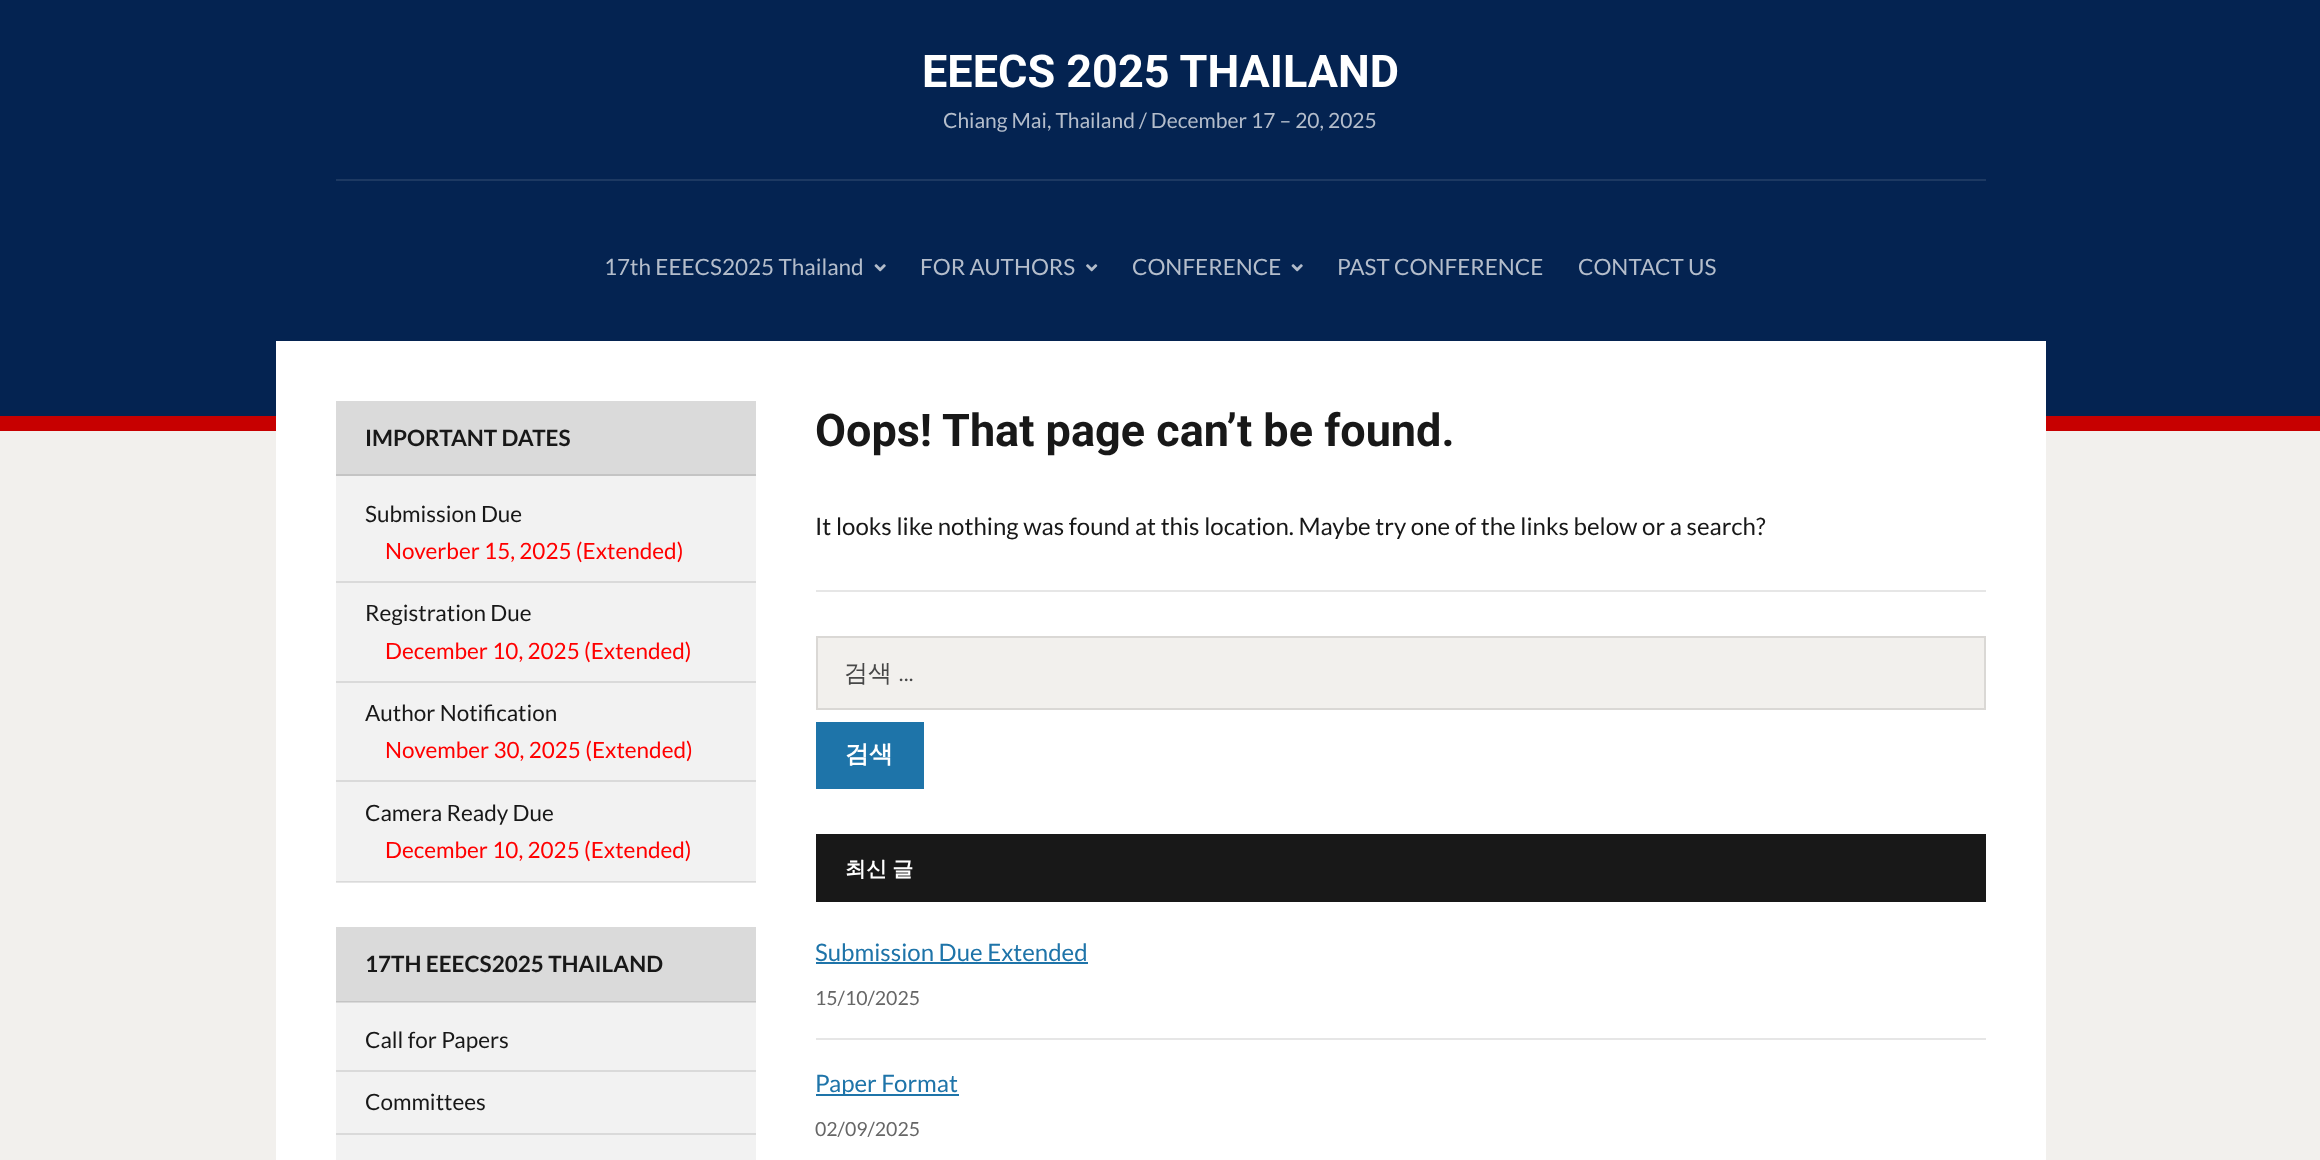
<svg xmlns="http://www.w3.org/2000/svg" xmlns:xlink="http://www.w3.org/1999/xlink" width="2320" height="1160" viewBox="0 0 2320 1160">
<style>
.cls-1{font:bold 45px Roboto;fill:#ffffff}
.cls-2{font:21px Lato;fill:#b4bdcb}
.cls-3{font:22.5px Lato;fill:#b4bdcb}
.cls-4{font:bold 22.5px Lato;fill:#181818}
.cls-5{font:22.5px Lato;fill:#181818}
.cls-6{font:22.5px Lato;fill:#ff0000}
.cls-7{font:bold 45px Roboto;fill:#181818}
.cls-8{font:24px Lato;fill:#181818}
.cls-9{font:500 24px WenQuanYi Zen Hei;fill:#484848}
.cls-10{font:24px Roboto;fill:#484848}
.cls-11{font:bold 24px WenQuanYi Zen Hei;fill:#ffffff}
.cls-12{font:bold 21px WenQuanYi Zen Hei;fill:#ffffff}
.cls-13{font:24px Lato;fill:#1e74a9}
.cls-14{font:19.5px Lato;fill:#666666}
</style>
<rect width="100%" height="100%" fill="#f2f0ed"/>
<rect fill="#042351" x="0" y="0" width="2320" height="416"/>
<rect fill="#c70000" x="0" y="416" width="2320" height="15"/>
<rect fill="#1d3962" x="336" y="179" width="1650" height="2"/>
<image xlink:href="image0.png" x="874" y="264" width="12" height="8"/>
<image xlink:href="image1.png" x="1086" y="264" width="12" height="8"/>
<image xlink:href="image0.png" x="1291" y="264" width="12" height="8"/>
<rect fill="#ffffff" x="276" y="341" width="1770" height="819"/>
<rect fill="#e6e6e6" x="336" y="882" width="420" height="1"/>
<rect fill="#f2f2f2" x="336" y="476" width="420" height="405"/>
<rect fill="#dadada" x="336" y="881" width="420" height="1"/>
<rect fill="#dadada" x="336" y="401" width="420" height="73"/>
<rect fill="#c4c4c4" x="336" y="474" width="420" height="2"/>
<rect fill="#dadada" x="336" y="581" width="420" height="2"/>
<rect fill="#dadada" x="336" y="681" width="420" height="2"/>
<rect fill="#dadada" x="336" y="780" width="420" height="2"/>
<rect fill="#f2f2f2" x="336" y="1003" width="420" height="157"/>
<rect fill="#dadada" x="336" y="1002" width="420" height="1"/>
<rect fill="#dadada" x="336" y="927" width="420" height="74"/>
<rect fill="#c4c4c4" x="336" y="1001" width="420" height="1"/>
<rect fill="#dadada" x="336" y="1070" width="420" height="2"/>
<rect fill="#dadada" x="336" y="1133" width="420" height="2"/>
<rect fill="#e6e6e6" x="816" y="590" width="1170" height="2"/>
<rect fill="#f2f0ed" stroke="#dad8d5" stroke-width="2" x="817" y="637" width="1168" height="72"/>
<rect fill="#1e74a9" x="816" y="722" width="108" height="67"/>
<rect fill="#181818" x="816" y="834" width="1170" height="68"/>
<rect fill="#1e74a9" x="816" y="962" width="272" height="2"/>
<rect fill="#e6e6e6" x="816" y="1038" width="1170" height="2"/>
<rect fill="#1e74a9" x="816" y="1094" width="143" height="2"/>
<text class="cls-1" x="922" y="87">EEECS 2025 THAILAND</text>
<text class="cls-2" x="943" y="128">Chiang Mai, Thailand / December 17 – 20, 2025</text>
<text class="cls-3" x="604" y="275">17th EEECS2025 Thailand</text>
<text class="cls-3" x="920" y="275">FOR AUTHORS</text>
<text class="cls-3" x="1132" y="275">CONFERENCE</text>
<text class="cls-3" x="1337" y="275">PAST CONFERENCE</text>
<text class="cls-3" x="1578" y="275">CONTACT US</text>
<text class="cls-4" x="365" y="446">IMPORTANT DATES</text>
<text class="cls-5" x="365" y="522">Submission Due</text>
<text class="cls-6" x="385" y="559">Noverber 15, 2025 (Extended)</text>
<text class="cls-5" x="365" y="621">Registration Due</text>
<text class="cls-6" x="385" y="659">December 10, 2025 (Extended)</text>
<text class="cls-5" x="365" y="721">Author Notification</text>
<text class="cls-6" x="385" y="758">November 30, 2025 (Extended)</text>
<text class="cls-5" x="365" y="821">Camera Ready Due</text>
<text class="cls-6" x="385" y="858">December 10, 2025 (Extended)</text>
<text class="cls-4" x="365" y="972">17TH EEECS2025 THAILAND</text>
<text class="cls-5" x="365" y="1048">Call for Papers</text>
<text class="cls-5" x="365" y="1110">Committees</text>
<text class="cls-7" x="815" y="446">Oops! That page can’t be found.</text>
<text class="cls-8" x="815" y="535">It looks like nothing was found at this location. Maybe try one of the links below or a search?</text>
<text class="cls-9" x="844" y="681">검색</text>
<text class="cls-10" x="898" y="681">…</text>
<text class="cls-11" x="845" y="762">검색</text>
<text class="cls-12" x="845" y="876" word-spacing="-1">최신 글</text>
<text class="cls-13" x="815" y="961">Submission Due Extended</text>
<text class="cls-14" x="815" y="1005">15/10/2025</text>
<text class="cls-13" x="815" y="1092">Paper Format</text>
<text class="cls-14" x="815" y="1136">02/09/2025</text>
</svg>
